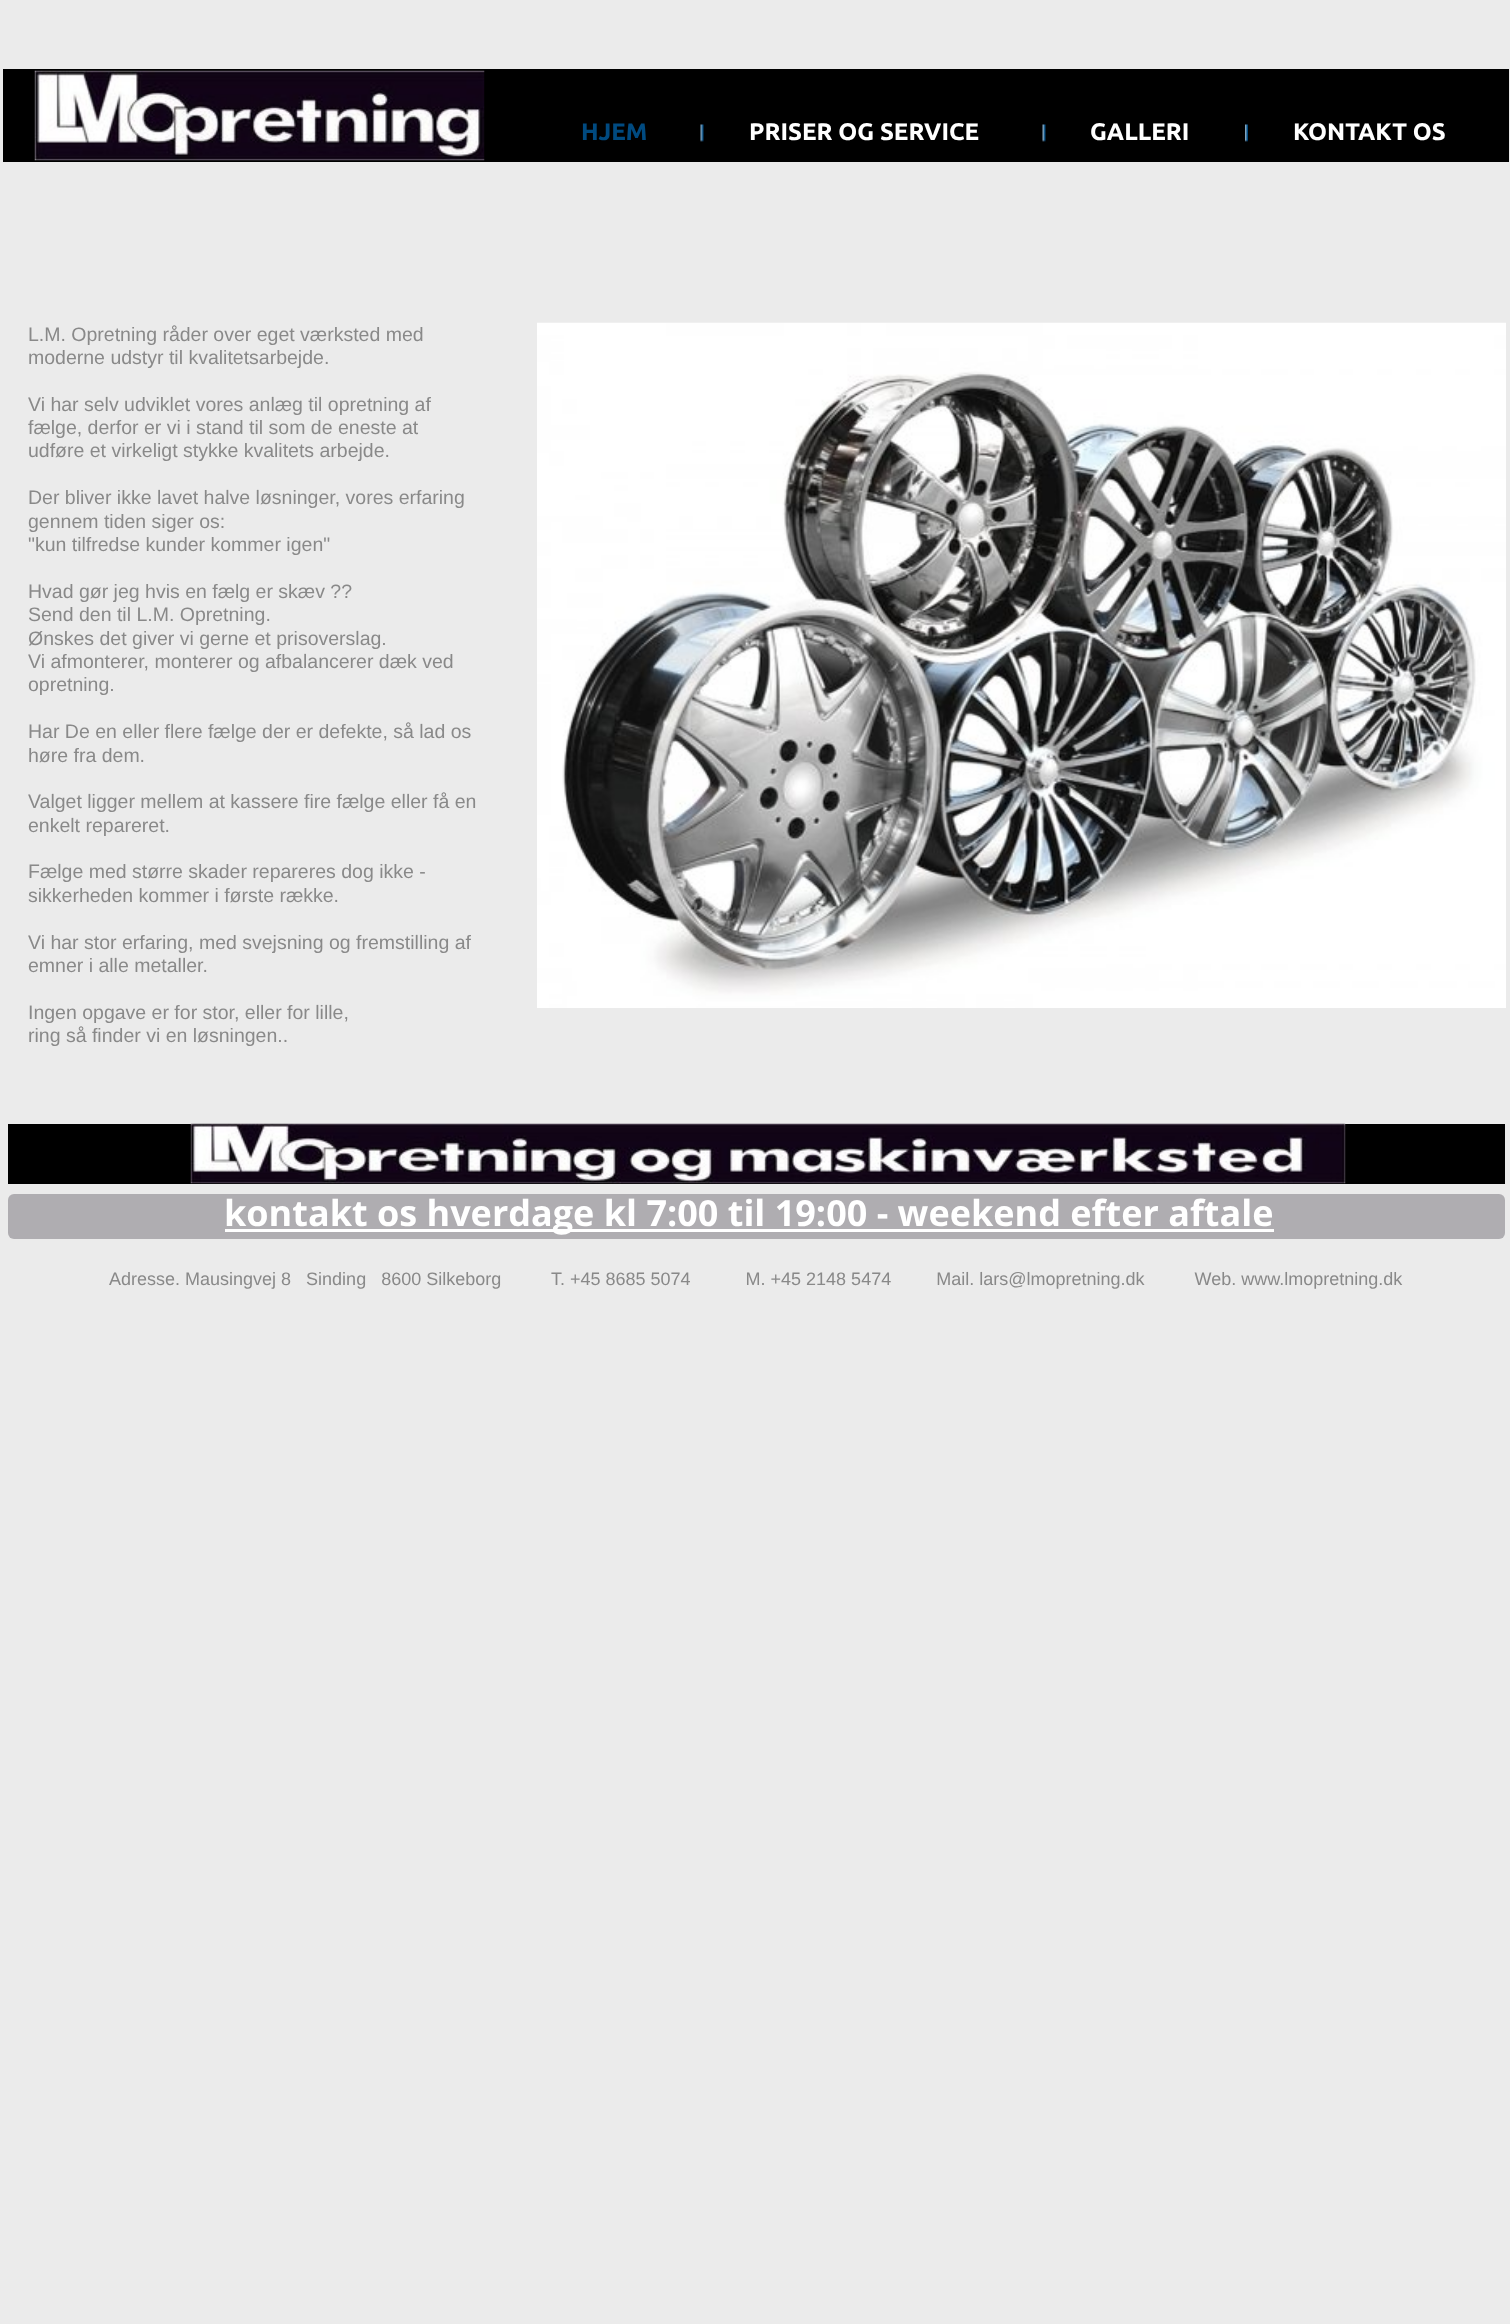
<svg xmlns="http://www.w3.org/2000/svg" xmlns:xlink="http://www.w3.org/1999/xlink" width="1510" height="2324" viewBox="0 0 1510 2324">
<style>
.cls-1{font:bold 24px Ubuntu;fill:#004a80}
.cls-2{font:bold 24px Ubuntu;fill:#ffffff}
.cls-3{font:19.5px Liberation Sans;fill:#898989}
.cls-4{font:bold 36px Open Sans;fill:#ffffff}
.cls-5{font:18px Liberation Sans;fill:#898989}
</style>
<rect width="100%" height="100%" fill="#ebebeb"/>
<rect fill="#000000" x="3" y="69" width="1506" height="93"/>
<image xlink:href="image0.png" x="34" y="70" width="451" height="91"/>
<image xlink:href="image1.png" x="700" y="124" width="4" height="18"/>
<image xlink:href="image2.png" x="1042" y="124" width="4" height="18"/>
<image xlink:href="image3.png" x="1245" y="124" width="3" height="18"/>
<image xlink:href="image4.png" x="537" y="322" width="969" height="686"/>
<rect fill="#000000" x="8" y="1124" width="1497" height="60"/>
<image xlink:href="image5.png" x="190" y="1123" width="1156" height="61"/>
<rect fill="#afadb1" x="8" y="1194" width="1497" height="45" rx="6"/>
<rect fill="#ffffff" x="225" y="1229" width="1049" height="3"/>
<text class="cls-1" x="581" y="140">HJEM</text>
<text class="cls-2" x="749" y="140">PRISER OG SERVICE</text>
<text class="cls-2" x="1090" y="140">GALLERI</text>
<text class="cls-2" x="1293" y="140">KONTAKT OS</text>
<text class="cls-3"><tspan x="28" y="341">L.M. Opretning råder over eget værksted med</tspan><tspan x="28" y="364">moderne udstyr til kvalitetsarbejde.</tspan></text>
<text class="cls-3"><tspan x="28" y="411">Vi har selv udviklet vores anlæg til opretning af</tspan><tspan x="28" y="434">fælge, derfor er vi i stand til som de eneste at</tspan><tspan x="28" y="457">udføre et virkeligt stykke kvalitets arbejde.</tspan></text>
<text class="cls-3"><tspan x="28" y="504">Der bliver ikke lavet halve løsninger, vores erfaring</tspan><tspan x="28" y="528">gennem tiden siger os:</tspan><tspan x="28" y="551">"kun tilfredse kunder kommer igen"</tspan></text>
<text class="cls-3"><tspan x="28" y="598">Hvad gør jeg hvis en fælg er skæv ??</tspan><tspan x="28" y="621">Send den til L.M. Opretning.</tspan><tspan x="28" y="645">Ønskes det giver vi gerne et prisoverslag.</tspan><tspan x="28" y="668">Vi afmonterer, monterer og afbalancerer dæk ved</tspan><tspan x="28" y="691">opretning.</tspan></text>
<text class="cls-3"><tspan x="28" y="738">Har De en eller flere fælge der er defekte, så lad os</tspan><tspan x="28" y="762">høre fra dem.</tspan></text>
<text class="cls-3"><tspan x="28" y="808">Valget ligger mellem at kassere fire fælge eller få en</tspan><tspan x="28" y="832">enkelt repareret.</tspan></text>
<text class="cls-3"><tspan x="28" y="878">Fælge med større skader repareres dog ikke -</tspan><tspan x="28" y="902">sikkerheden kommer i første række.</tspan></text>
<text class="cls-3"><tspan x="28" y="949">Vi har stor erfaring, med svejsning og fremstilling af</tspan><tspan x="28" y="972">emner i alle metaller.</tspan></text>
<text class="cls-3"><tspan x="28" y="1019">Ingen opgave er for stor, eller for lille,</tspan><tspan x="28" y="1042">ring så finder vi en løsningen..</tspan></text>
<text class="cls-4" x="224" y="1226">kontakt os hverdage kl 7:00 til 19:00 - weekend efter aftale</text>
<text class="cls-5" xml:space="preserve" x="109" y="1285">Adresse. Mausingvej 8   Sinding   8600 Silkeborg          T. +45 8685 5074           M. +45 2148 5474         Mail. lars@lmopretning.dk          Web. www.lmopretning.dk</text>
</svg>
